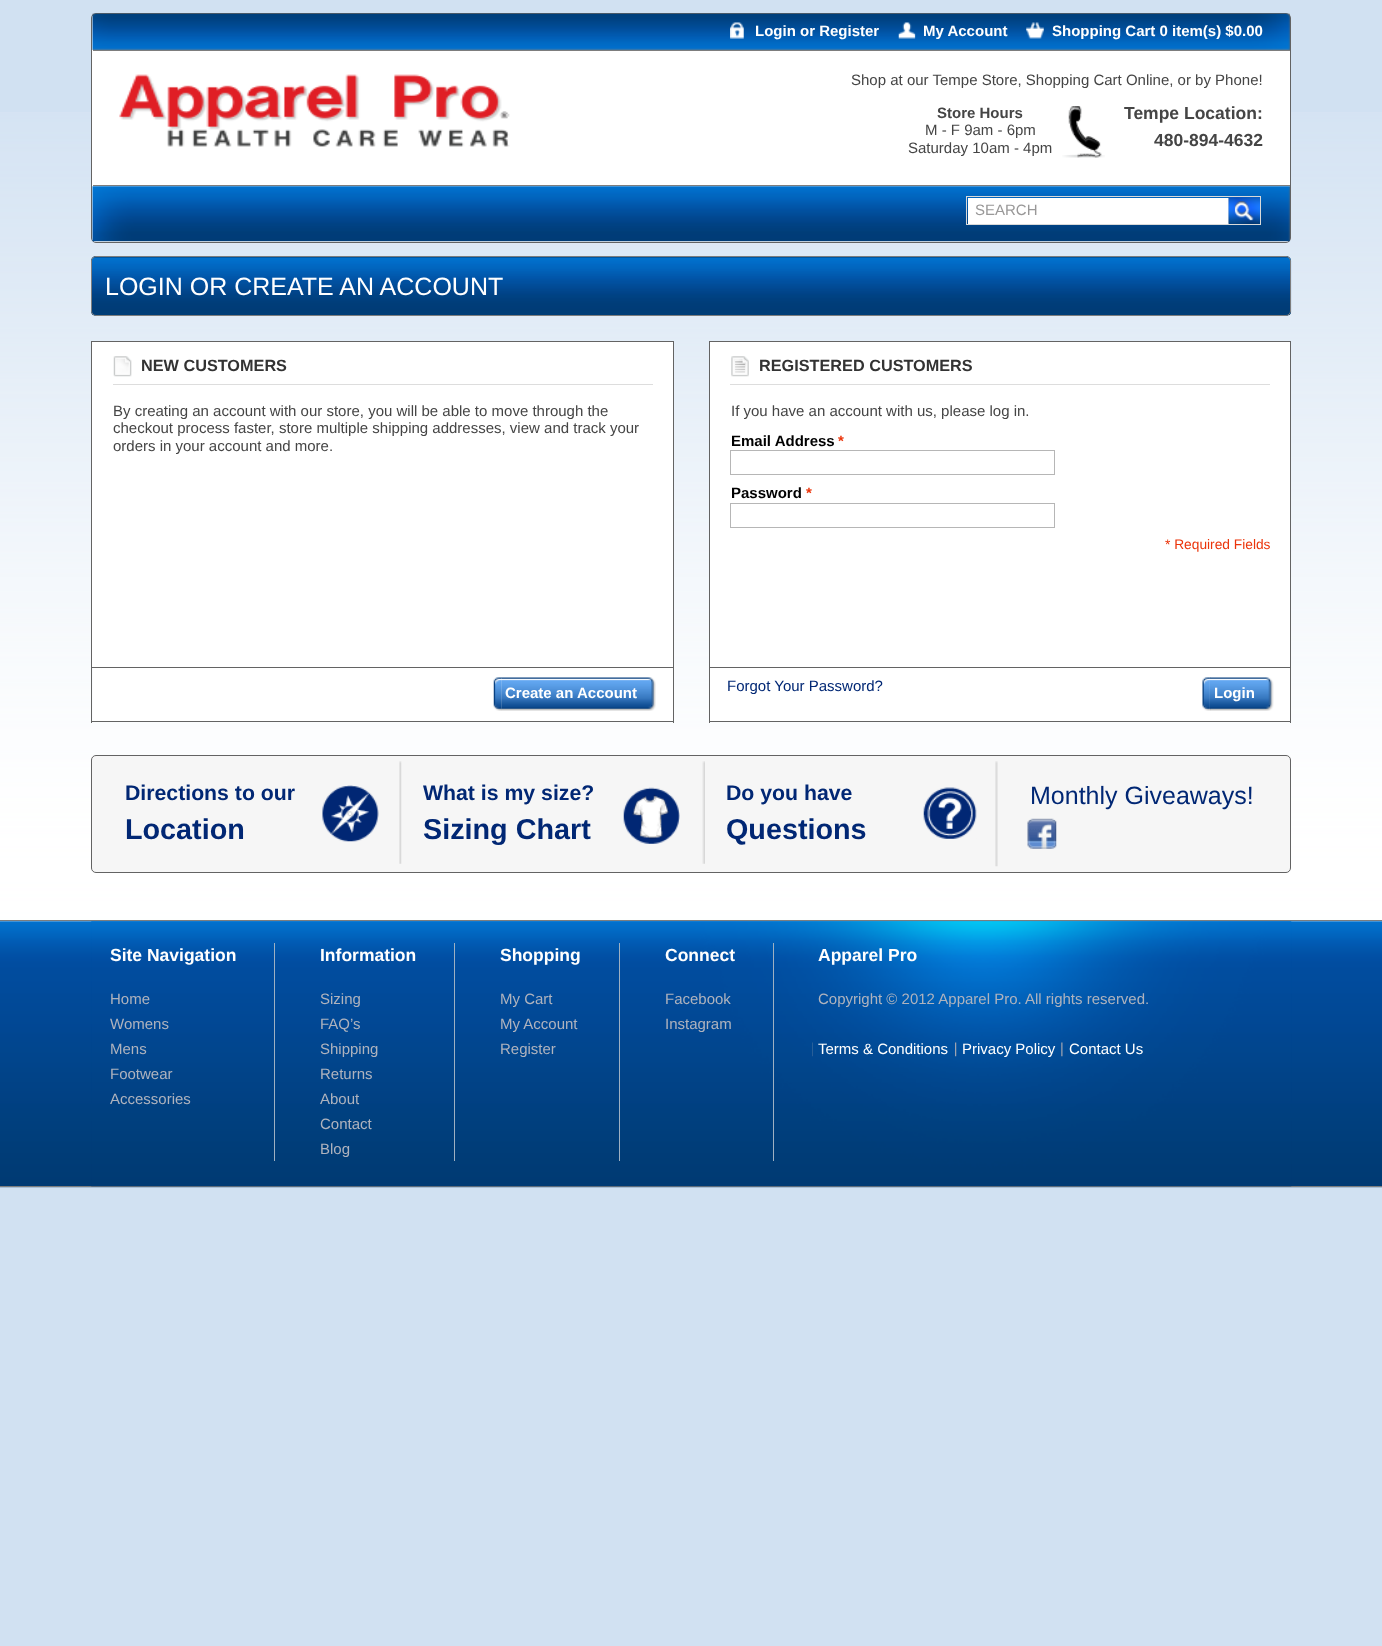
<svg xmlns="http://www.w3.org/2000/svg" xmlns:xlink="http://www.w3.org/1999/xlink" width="1382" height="1646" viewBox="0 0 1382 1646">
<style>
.cls-1{font:bold 15px Liberation Sans;fill:#ffffff}
.cls-2{font:15px Liberation Sans;fill:#454545}
.cls-3{font:bold 15px Liberation Sans;fill:#454545}
.cls-4{font:bold 17.5px Liberation Sans;fill:#454545}
.cls-5{font:15px Liberation Sans;fill:#999898}
.cls-6{font:25px Liberation Sans;fill:#ffffff}
.cls-7{font:bold 16.25px Liberation Sans;fill:#333333}
.cls-8{font:bold 15px Liberation Sans;fill:#000000}
.cls-9{font:bold 15px Liberation Sans;fill:#eb340a}
.cls-10{font:13.75px Liberation Sans;fill:#eb340a}
.cls-11{font:15px Liberation Sans;fill:#012774}
.cls-12{font:bold 21.25px Liberation Sans;fill:#012774}
.cls-13{font:bold 28.75px Liberation Sans;fill:#012774}
.cls-14{font:25px Liberation Sans;fill:#012774}
.cls-15{font:bold 17.5px Liberation Sans;fill:#ffffff}
.cls-16{font:15px Liberation Sans;fill:#afb3be}
.cls-17{font:15px Liberation Sans;fill:#ffffff}
</style>
<rect width="100%" height="100%" fill="#d1e1f2"/>
<image xlink:href="image0.png" x="0" y="112" width="1382" height="1076"/>
<rect fill="#ffffff" stroke="#636363" x="91.5" y="13.5" width="1199" height="229" rx="4.5"/>
<image xlink:href="image1.png" x="92" y="13" width="1198" height="37"/>
<image xlink:href="image2.png" x="730" y="22" width="14" height="17"/>
<image xlink:href="image3.png" x="898" y="22" width="18" height="17"/>
<image xlink:href="image4.png" x="1026" y="22" width="18" height="17"/>
<rect fill="#7d7d7d" x="93" y="50" width="1197" height="1"/>
<rect fill="#7d7d7d" x="93" y="185" width="1197" height="1"/>
<image xlink:href="image5.png" x="119" y="74" width="391" height="73"/>
<image xlink:href="image6.png" x="1062" y="106" width="43" height="52"/>
<image xlink:href="image7.png" x="92" y="186" width="1198" height="56"/>
<rect fill="none" stroke="#d9d9d9" x="966.5" y="196.5" width="294" height="28"/>
<rect fill="#ffffff" x="968" y="198" width="260" height="26"/>
<rect fill="#d9d9d9" x="1228" y="198" width="1" height="26"/>
<image xlink:href="image8.png" x="1228" y="197" width="32" height="27"/>
<image xlink:href="image9.png" x="1228" y="197" width="32" height="27"/>
<rect fill="#003e77" x="91" y="256" width="1200" height="60" rx="5"/>
<image xlink:href="image10.png" x="91" y="257" width="1201" height="58"/>
<rect fill="none" stroke="#7d7d7d" x="91.5" y="256.5" width="1199" height="59" rx="4.5"/>
<rect fill="#ffffff" stroke="#636363" x="91.5" y="341.5" width="582" height="326"/>
<image xlink:href="image11.png" x="113" y="356" width="19" height="21"/>
<rect fill="#dddddd" x="113" y="384" width="540" height="1"/>
<rect fill="#ffffff" stroke="#636363" x="709.5" y="341.5" width="581" height="326"/>
<image xlink:href="image12.png" x="731" y="356" width="18" height="21"/>
<rect fill="#dddddd" x="730" y="384" width="540" height="1"/>
<rect fill="none" stroke="#b6b6b6" x="730.5" y="450.5" width="324" height="24"/>
<rect fill="none" stroke="#b6b6b6" x="730.5" y="503.5" width="324" height="24"/>
<rect fill="#ffffff" x="93" y="668" width="580" height="53"/>
<rect fill="#636363" x="673" y="668" width="1" height="55"/>
<rect fill="#636363" x="91" y="721" width="583" height="1"/>
<rect fill="#636363" x="91" y="668" width="1" height="55"/>
<image xlink:href="image13.png" x="493" y="677" width="9" height="34"/>
<image xlink:href="image14.png" x="501" y="677" width="155" height="34"/>
<rect fill="#ffffff" x="710" y="668" width="580" height="53"/>
<rect fill="#636363" x="1290" y="668" width="1" height="55"/>
<rect fill="#636363" x="709" y="721" width="582" height="1"/>
<rect fill="#636363" x="709" y="668" width="1" height="55"/>
<image xlink:href="image15.png" x="1202" y="677" width="9" height="34"/>
<image xlink:href="image16.png" x="1210" y="677" width="64" height="34"/>
<rect fill="#f6f6f6" stroke="#636363" x="91.5" y="755.5" width="1199" height="117" rx="4.5"/>
<image xlink:href="image17.png" x="322" y="785" width="57" height="57"/>
<image xlink:href="image18.png" x="399" y="761" width="3" height="103"/>
<image xlink:href="image19.png" x="623" y="787" width="57" height="57"/>
<image xlink:href="image20.png" x="702" y="761" width="3" height="103"/>
<image xlink:href="image21.png" x="923" y="787" width="54" height="52"/>
<image xlink:href="image22.png" x="995" y="761" width="3" height="106"/>
<image xlink:href="image23.png" x="1027" y="818" width="30" height="31"/>
<image xlink:href="image24.png" x="0" y="921" width="1382" height="267"/>
<rect fill="#7d7d7d" x="0" y="920" width="1382" height="1"/>
<rect fill="#7d7d7d" x="0" y="1186" width="1382" height="1"/>
<image xlink:href="image25.png" x="91" y="921" width="1201" height="266"/>
<rect fill="#9eb0c2" x="274" y="943" width="1" height="218"/>
<rect fill="#9eb0c2" x="454" y="943" width="1" height="218"/>
<rect fill="#9eb0c2" x="619" y="943" width="1" height="218"/>
<rect fill="#9eb0c2" x="773" y="943" width="1" height="218"/>
<image xlink:href="image26.png" x="812" y="1042" width="1" height="15"/>
<image xlink:href="image27.png" x="955" y="1042" width="2" height="15"/>
<image xlink:href="image28.png" x="1061" y="1042" width="2" height="15"/>
<text class="cls-1" x="755" y="36">Login or Register</text>
<text class="cls-1" x="923" y="36">My Account</text>
<text class="cls-1" x="1052" y="36">Shopping Cart 0 item(s) $0.00</text>
<text class="cls-2" x="851" y="85">Shop at our Tempe Store, Shopping Cart Online, or by Phone!</text>
<text class="cls-3" x="937" y="118">Store Hours</text>
<text class="cls-2" x="925" y="135">M - F 9am - 6pm</text>
<text class="cls-2" x="908" y="153">Saturday 10am - 4pm</text>
<text class="cls-4" x="1124" y="119">Tempe Location:</text>
<text class="cls-4" x="1154" y="146">480-894-4632</text>
<text class="cls-5" x="975" y="215">SEARCH</text>
<text class="cls-6" x="105" y="295">LOGIN OR CREATE AN ACCOUNT</text>
<text class="cls-7" x="141" y="371">NEW CUSTOMERS</text>
<text class="cls-2"><tspan x="113" y="416">By creating an account with our store, you will be able to move through the</tspan><tspan x="113" y="433">checkout process faster, store multiple shipping addresses, view and track your</tspan><tspan x="113" y="451">orders in your account and more.</tspan></text>
<text class="cls-7" x="759" y="371">REGISTERED CUSTOMERS</text>
<text class="cls-2" x="731" y="416">If you have an account with us, please log in.</text>
<text class="cls-8" x="731" y="446">Email Address</text>
<text class="cls-9" x="838" y="446">*</text>
<text class="cls-8" x="731" y="498">Password</text>
<text class="cls-9" x="806" y="498">*</text>
<text class="cls-10" x="1165" y="549">* Required Fields</text>
<text class="cls-1" x="505" y="698">Create an Account</text>
<text class="cls-11" x="727" y="691">Forgot Your Password?</text>
<text class="cls-1" x="1214" y="698">Login</text>
<text class="cls-12" x="125" y="800">Directions to our</text>
<text class="cls-13" x="125" y="839">Location</text>
<text class="cls-12" x="423" y="800">What is my size?</text>
<text class="cls-13" x="423" y="839">Sizing Chart</text>
<text class="cls-12" x="726" y="800">Do you have</text>
<text class="cls-13" x="726" y="839">Questions</text>
<text class="cls-14" x="1030" y="804">Monthly Giveaways!</text>
<text class="cls-15" x="110" y="961">Site Navigation</text>
<text class="cls-16"><tspan x="110" y="1004">Home</tspan><tspan x="110" y="1029">Womens</tspan><tspan x="110" y="1054">Mens</tspan><tspan x="110" y="1079">Footwear</tspan><tspan x="110" y="1104">Accessories</tspan></text>
<text class="cls-15" x="320" y="961">Information</text>
<text class="cls-16"><tspan x="320" y="1004">Sizing</tspan><tspan x="320" y="1029">FAQ’s</tspan><tspan x="320" y="1054">Shipping</tspan><tspan x="320" y="1079">Returns</tspan><tspan x="320" y="1104">About</tspan><tspan x="320" y="1129">Contact</tspan><tspan x="320" y="1154">Blog</tspan></text>
<text class="cls-15" x="500" y="961">Shopping</text>
<text class="cls-16"><tspan x="500" y="1004">My Cart</tspan><tspan x="500" y="1029">My Account</tspan><tspan x="500" y="1054">Register</tspan></text>
<text class="cls-15" x="665" y="961">Connect</text>
<text class="cls-16"><tspan x="665" y="1004">Facebook</tspan><tspan x="665" y="1029">Instagram</tspan></text>
<text class="cls-15" x="818" y="961">Apparel Pro</text>
<text class="cls-16" x="818" y="1004">Copyright © 2012 Apparel Pro. All rights reserved.</text>
<text class="cls-17" x="818" y="1054">Terms &amp; Conditions</text>
<text class="cls-17" x="962" y="1054">Privacy Policy</text>
<text class="cls-17" x="1069" y="1054">Contact Us</text>
</svg>
